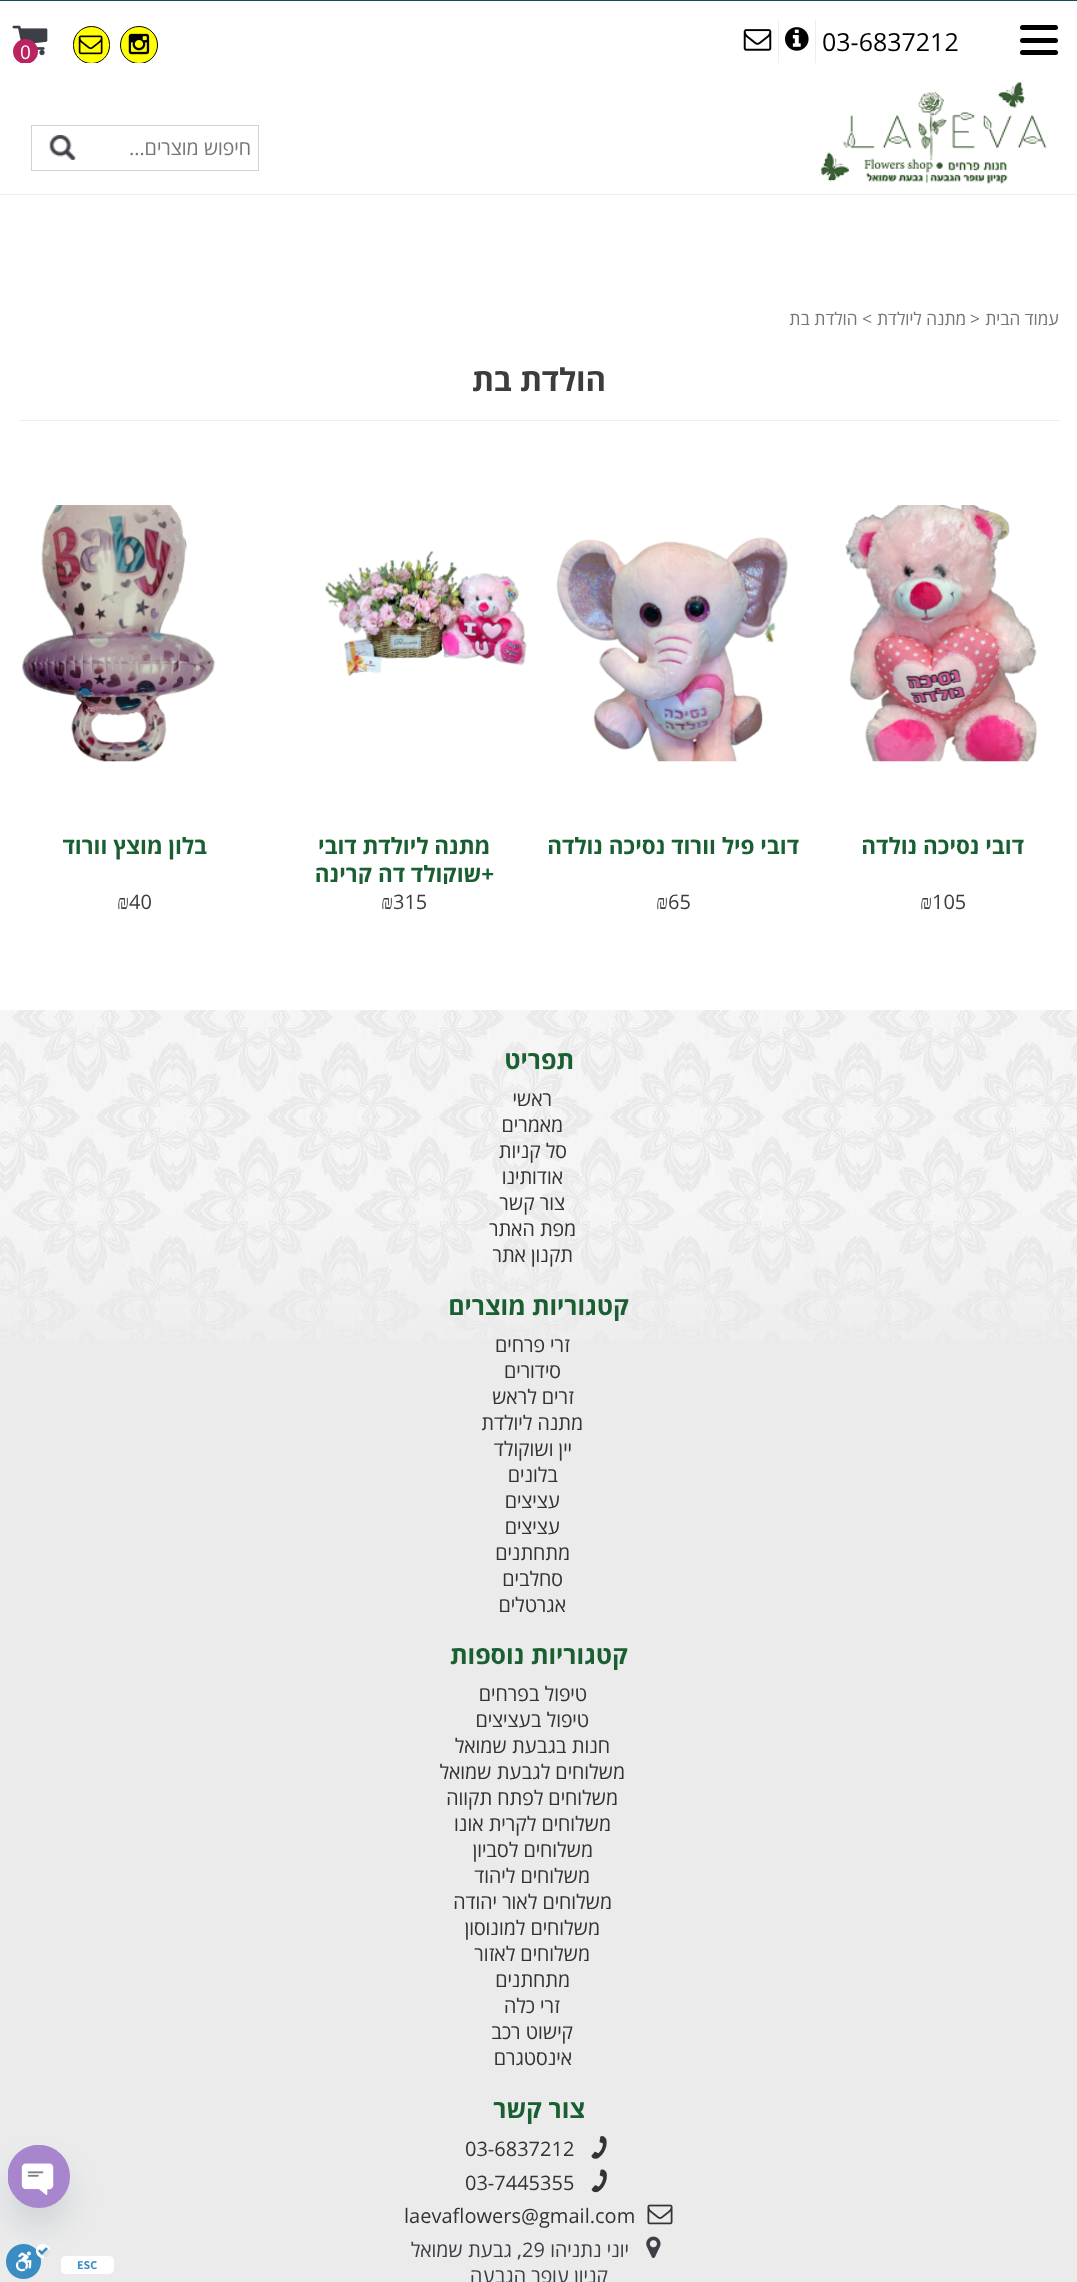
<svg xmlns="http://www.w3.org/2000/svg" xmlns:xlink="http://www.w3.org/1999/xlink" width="1077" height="2282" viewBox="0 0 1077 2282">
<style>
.cls-1{font:25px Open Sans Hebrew;fill:#000000}
.cls-2{font:19px Open Sans Hebrew;fill:#ffffff}
.cls-3{font:20px Open Sans Hebrew;direction:rtl;fill:#767676}
.cls-4{font:17.5px Open Sans Hebrew;direction:rtl;fill:#767676}
.cls-5{font:17.5px Open Sans Hebrew;fill:#767676}
.cls-6{font:bold 31.25px Open Sans Hebrew;direction:rtl;fill:#3c3c3c}
.cls-7{font:bold 22.5px Open Sans Hebrew;direction:rtl;fill:#195f32}
.cls-8{font:20px Open Sans Hebrew;fill:#3c3c3c}
.cls-9{font:20px Liberation Serif;fill:#3c3c3c}
.cls-10{font:bold 25px Open Sans Hebrew;direction:rtl;fill:#195f32}
.cls-11{font:20px Open Sans Hebrew;direction:rtl;fill:#333333}
.cls-12{font:20px Open Sans Hebrew;fill:#333333}
.cls-13{font:20px Open Sans Hebrew;direction:rtl;fill:#3e3e47}
.cls-14{font:20px Open Sans Hebrew;fill:#3e3e47}
.cls-15{font:bold 12px Assistant;fill:#3a8dc2}
</style>
<defs>
<clipPath id="clip1"><rect x="276" y="821" width="257" height="63"/></clipPath>
</defs>
<rect width="100%" height="100%" fill="#ffffff"/>
<rect fill="#000000" x="1020" y="25" width="38" height="5" rx="2.5"/>
<rect fill="#000000" x="1020" y="38" width="38" height="5" rx="2.5"/>
<rect fill="#000000" x="1020" y="50" width="38" height="5" rx="2.5"/>
<rect fill="#eeeeee" x="815" y="20" width="1" height="46"/>
<rect fill="#eeeeee" x="778" y="20" width="1" height="44"/>
<image xlink:href="image0.png" x="785" y="27" width="24" height="24"/>
<image xlink:href="image1.png" x="743" y="29" width="29" height="22"/>
<circle fill="#ffff00" stroke="#000000" cx="139" cy="45" r="18.5"/>
<image xlink:href="image2.png" x="128" y="33" width="22" height="22"/>
<rect fill="#ffff00" stroke="#000000" x="73.5" y="26.5" width="36" height="37" rx="18"/>
<image xlink:href="image3.png" x="78" y="35" width="25" height="20"/>
<image xlink:href="image4.png" x="12" y="25" width="36" height="31"/>
<circle fill="#bc2363" cx="25.5" cy="51.5" r="12.5"/>
<rect fill="#ffffff" x="20" y="63" width="796" height="3"/>
<rect fill="#eeeeee" x="0" y="194" width="1077" height="1"/>
<image xlink:href="image5.png" x="821" y="82" width="226" height="104"/>
<rect fill="none" stroke="#d3d3d3" x="31.5" y="125.5" width="227" height="45"/>
<image xlink:href="image6.png" x="49" y="135" width="27" height="25"/>
<rect fill="#eeeeee" x="19" y="420" width="1040" height="1"/>
<image xlink:href="image7.png" x="845" y="505" width="193" height="257"/>
<image xlink:href="image8.png" x="556" y="537" width="232" height="225"/>
<image xlink:href="image9.png" x="325" y="551" width="202" height="126"/>
<image xlink:href="image10.png" x="22" y="505" width="194" height="257"/>
<rect fill="#ebebeb" x="0" y="1341" width="1077" height="941"/>
<image xlink:href="image11.png" x="0" y="1010" width="1077" height="331"/>
<image xlink:href="image12.png" x="591" y="2136" width="16" height="23"/>
<image xlink:href="image13.png" x="591" y="2169" width="16" height="24"/>
<image xlink:href="image14.png" x="647" y="2204" width="26" height="21"/>
<image xlink:href="image15.png" x="646" y="2236" width="15" height="22"/>
<rect fill="#49687e" fill-opacity="0.16" filter="blur(15px)" x="8" y="2165" width="62" height="63" rx="31"/>
<rect fill="#a886cd" x="8" y="2145" width="62" height="63" rx="31"/>
<image xlink:href="image16.png" x="8" y="2145" width="49" height="50"/>
<rect fill="#15495f" x="0" y="0" width="1077" height="1"/>
<rect fill="#ffffff" x="61" y="2256" width="53" height="18" rx="5"/>
<image xlink:href="image17.png" x="6" y="2244" width="44" height="35"/>
<text class="cls-1" x="822" y="51">03-6837212</text>
<text class="cls-2" x="20" y="59">0</text>
<text class="cls-3" x="251" y="155">חיפוש מוצרים…</text>
<text class="cls-4" x="1059" y="325">עמוד הבית</text>
<text class="cls-5" x="970" y="325">&gt;</text>
<text class="cls-4" x="966" y="325">מתנה ליולדת</text>
<text class="cls-4" x="872" y="325">&gt; הולדת בת</text>
<text class="cls-6" x="606" y="391">הולדת בת</text>
<text class="cls-7" x="1024" y="854">דובי נסיכה נולדה</text>
<text class="cls-8" x="932" y="909">105</text>
<text class="cls-9" x="920" y="909">₪</text>
<text class="cls-7" x="799" y="854">דובי פיל וורוד נסיכה נולדה</text>
<text class="cls-8" x="668" y="909">65</text>
<text class="cls-9" x="656" y="909">₪</text>
<text class="cls-7" x="490" y="854">מתנה ליולדת דובי</text>
<g clip-path="url(#clip1)">
<text class="cls-7" x="494" y="882">+שוקולד דה קרינה</text>
</g>
<text class="cls-8" x="393" y="909">315</text>
<text class="cls-9" x="381" y="909">₪</text>
<text class="cls-7" x="207" y="854">בלון מוצץ וורוד</text>
<text class="cls-8" x="129" y="909">40</text>
<text class="cls-9" x="117" y="909">₪</text>
<text class="cls-10" x="574" y="1069">תפריט</text>
<text class="cls-11" x="552" y="1106">ראשי</text>
<text class="cls-11" x="563" y="1132">מאמרים</text>
<text class="cls-11" x="567" y="1158">סל קניות</text>
<text class="cls-11" x="563" y="1184">אודותינו</text>
<text class="cls-11" x="565" y="1210">צור קשר</text>
<text class="cls-11" x="576" y="1236">מפת האתר</text>
<text class="cls-11" x="573" y="1262">תקנון אתר</text>
<text class="cls-10" x="629" y="1315">קטגוריות מוצרים</text>
<text class="cls-11" x="570" y="1352">זרי פרחים</text>
<text class="cls-11" x="561" y="1378">סידורים</text>
<text class="cls-11" x="574" y="1404">זרים לראש</text>
<text class="cls-11" x="583" y="1430">מתנה ליולדת</text>
<text class="cls-11" x="572" y="1456">יין ושוקולד</text>
<text class="cls-11" x="558" y="1482">בלונים</text>
<text class="cls-11"><tspan x="560" y="1508">עציצים</tspan><tspan x="560" y="1534">עציצים</tspan></text>
<text class="cls-11" x="570" y="1560">מתחתנים</text>
<text class="cls-11" x="563" y="1586">סחלבים</text>
<text class="cls-11" x="566" y="1612">אגרטלים</text>
<text class="cls-10" x="628" y="1664">קטגוריות נוספות</text>
<text class="cls-11" x="587" y="1701">טיפול בפרחים</text>
<text class="cls-11" x="589" y="1727">טיפול בעציצים</text>
<text class="cls-11" x="610" y="1753">חנות בגבעת שמואל</text>
<text class="cls-11" x="625" y="1779">משלוחים לגבעת שמואל</text>
<text class="cls-11" x="618" y="1805">משלוחים לפתח תקווה</text>
<text class="cls-11" x="611" y="1831">משלוחים לקרית אונו</text>
<text class="cls-11" x="593" y="1857">משלוחים לסביון</text>
<text class="cls-11" x="590" y="1883">משלוחים ליהוד</text>
<text class="cls-11" x="612" y="1909">משלוחים לאור יהודה</text>
<text class="cls-11" x="600" y="1935">משלוחים למונוסון</text>
<text class="cls-11" x="590" y="1961">משלוחים לאזור</text>
<text class="cls-11" x="570" y="1987">מתחתנים</text>
<text class="cls-11" x="560" y="2013">זרי כלה</text>
<text class="cls-11" x="573" y="2039">קישוט רכב</text>
<text class="cls-11" x="572" y="2065">אינסטגרם</text>
<text class="cls-10" x="585" y="2118">צור קשר</text>
<text class="cls-12"><tspan x="465" y="2156">03-6837212</tspan><tspan x="465" y="2190">03-7445355</tspan></text>
<text class="cls-12" x="404" y="2223">laevaflowers@gmail.com</text>
<text class="cls-13" x="629" y="2257">יוני נתניהו</text>
<text class="cls-14" x="522" y="2257">29</text>
<text class="cls-13" x="522" y="2257">, גבעת שמואל</text>
<text class="cls-13" x="608" y="2283">קניון עופר הגבעה</text>
<text class="cls-15" x="77" y="2269">ESC</text>
</svg>
